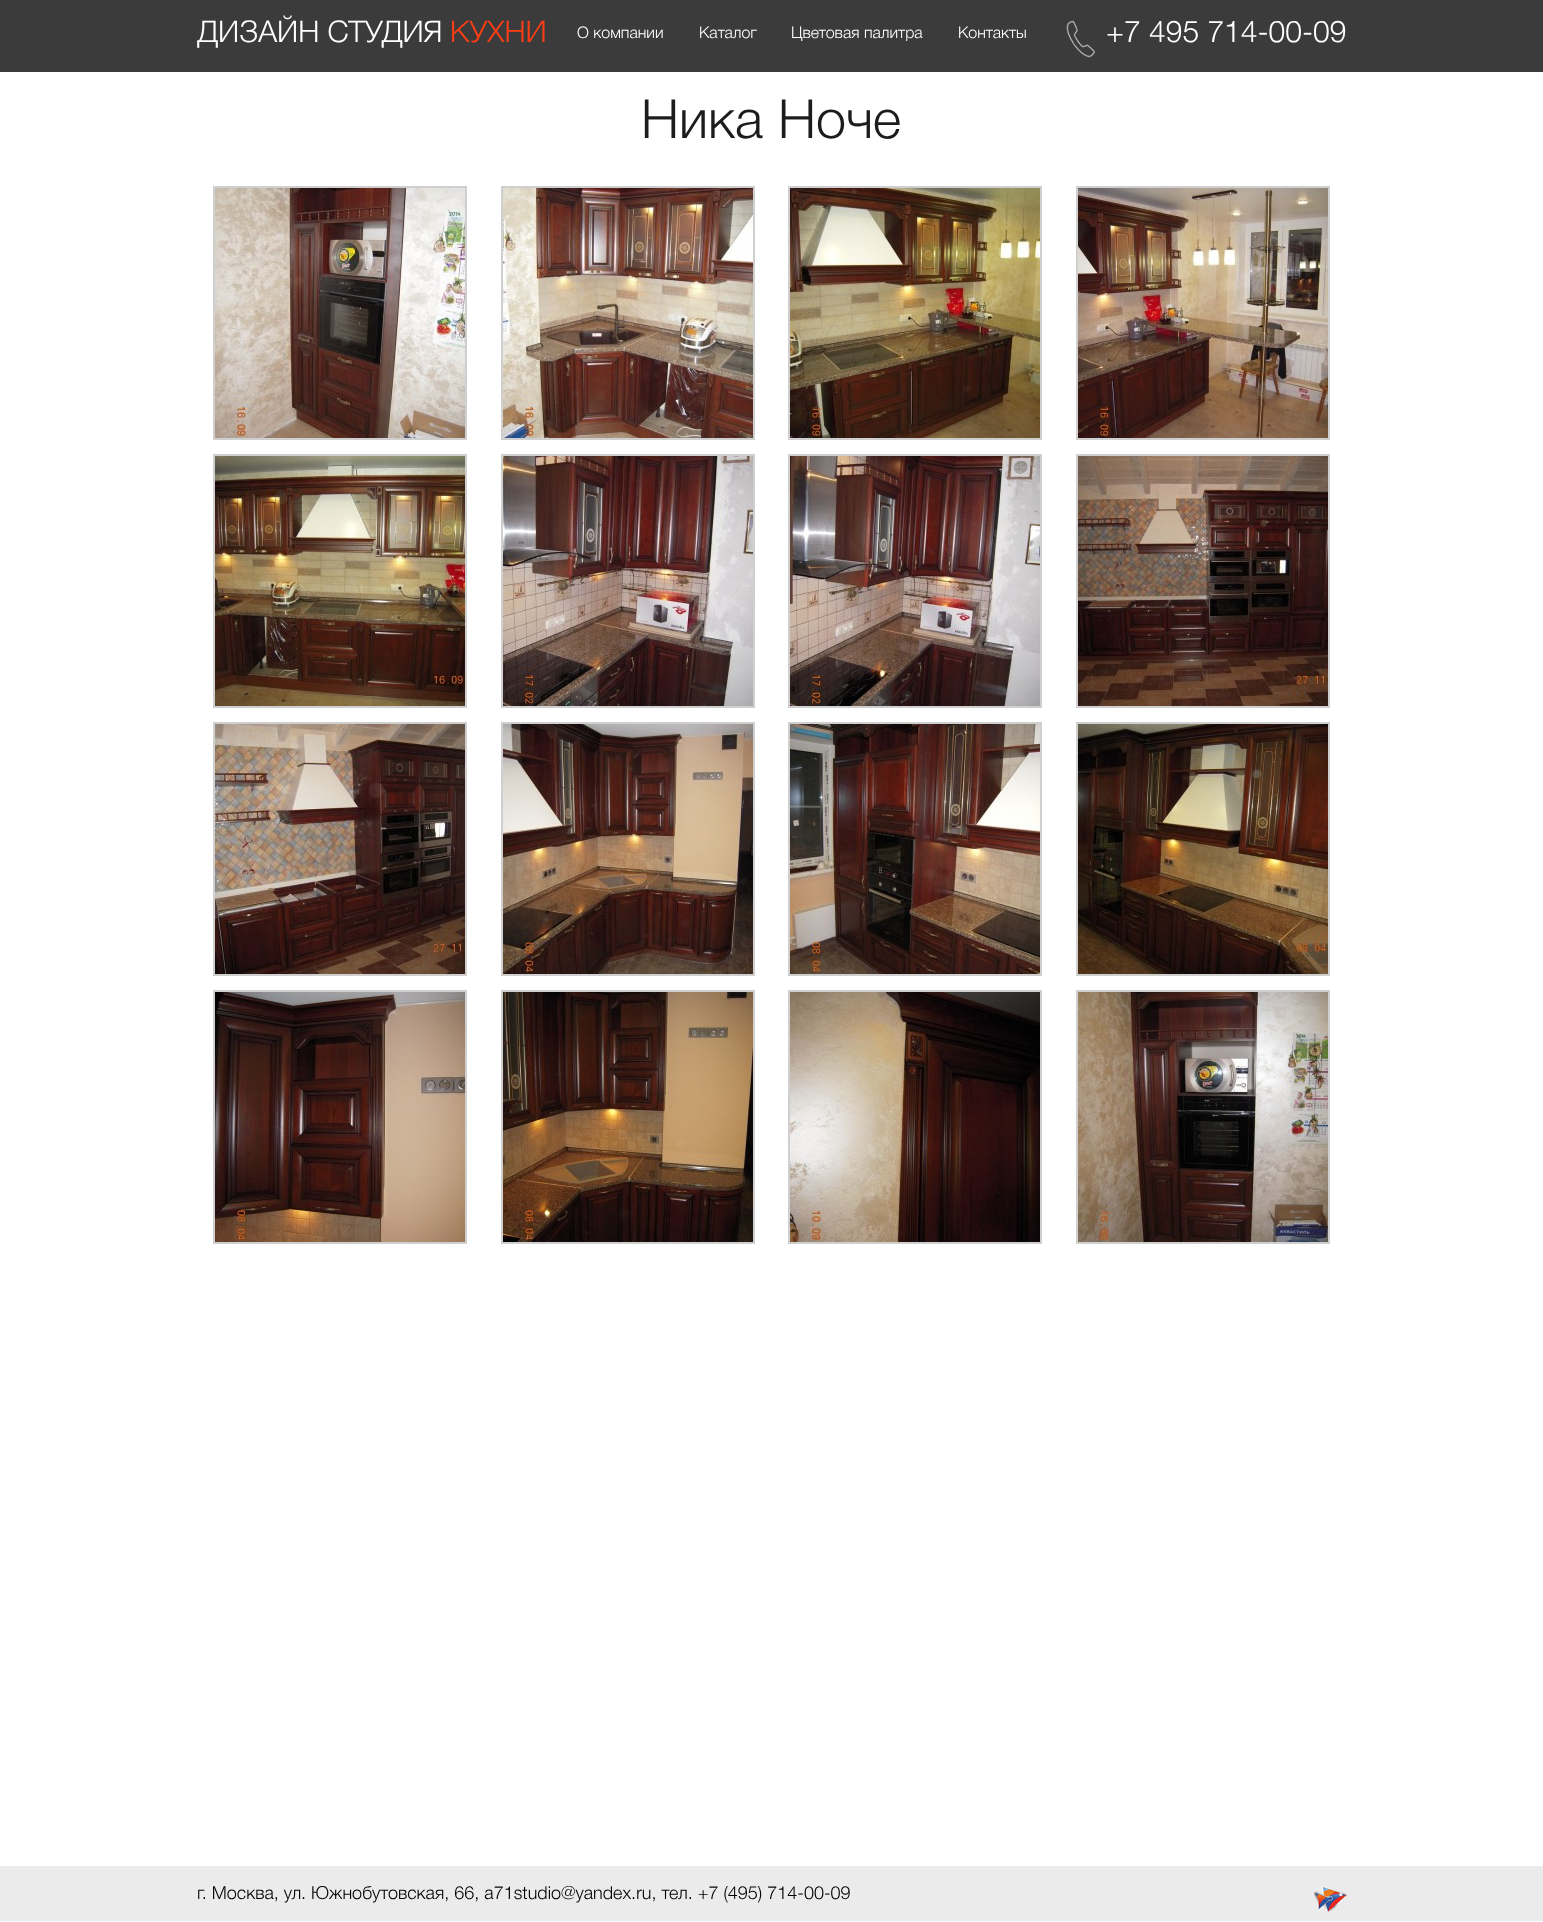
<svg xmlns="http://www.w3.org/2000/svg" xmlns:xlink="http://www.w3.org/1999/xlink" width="1543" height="1922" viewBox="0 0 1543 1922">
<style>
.cls-1{font:300 30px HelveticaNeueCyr;fill:#ffffff}
.cls-2{font:300 30px HelveticaNeueCyr;fill:#ff3e15}
.cls-3{font:300 16px HelveticaNeueCyr;fill:#ffffff}
.cls-4{font:300 54px HelveticaNeueCyr;fill:#1c1c1c}
.cls-5{font:300 18px HelveticaNeueCyr;fill:#000000}
</style>
<rect width="100%" height="100%" fill="#ffffff"/>
<rect fill="#3b3b3b" x="0" y="0" width="1543" height="72"/>
<image xlink:href="image0.png" x="1066" y="20" width="29" height="38"/>
<rect fill="none" stroke="#cfcfcf" stroke-width="2" x="214" y="187" width="252" height="252"/>
<image xlink:href="image1.png" x="215" y="188" width="250" height="250"/>
<rect fill="none" stroke="#cfcfcf" stroke-width="2" x="502" y="187" width="252" height="252"/>
<image xlink:href="image2.png" x="503" y="188" width="250" height="250"/>
<rect fill="none" stroke="#cfcfcf" stroke-width="2" x="789" y="187" width="252" height="252"/>
<image xlink:href="image3.png" x="790" y="188" width="250" height="250"/>
<rect fill="none" stroke="#cfcfcf" stroke-width="2" x="1077" y="187" width="252" height="252"/>
<image xlink:href="image4.png" x="1078" y="188" width="250" height="250"/>
<rect fill="none" stroke="#cfcfcf" stroke-width="2" x="214" y="455" width="252" height="252"/>
<image xlink:href="image5.png" x="215" y="456" width="250" height="250"/>
<rect fill="none" stroke="#cfcfcf" stroke-width="2" x="502" y="455" width="252" height="252"/>
<image xlink:href="image6.png" x="503" y="456" width="250" height="250"/>
<rect fill="none" stroke="#cfcfcf" stroke-width="2" x="789" y="455" width="252" height="252"/>
<image xlink:href="image7.png" x="790" y="456" width="250" height="250"/>
<rect fill="none" stroke="#cfcfcf" stroke-width="2" x="1077" y="455" width="252" height="252"/>
<image xlink:href="image8.png" x="1078" y="456" width="250" height="250"/>
<rect fill="none" stroke="#cfcfcf" stroke-width="2" x="214" y="723" width="252" height="252"/>
<image xlink:href="image9.png" x="215" y="724" width="250" height="250"/>
<rect fill="none" stroke="#cfcfcf" stroke-width="2" x="502" y="723" width="252" height="252"/>
<image xlink:href="image10.png" x="503" y="724" width="250" height="250"/>
<rect fill="none" stroke="#cfcfcf" stroke-width="2" x="789" y="723" width="252" height="252"/>
<image xlink:href="image11.png" x="790" y="724" width="250" height="250"/>
<rect fill="none" stroke="#cfcfcf" stroke-width="2" x="1077" y="723" width="252" height="252"/>
<image xlink:href="image12.png" x="1078" y="724" width="250" height="250"/>
<rect fill="none" stroke="#cfcfcf" stroke-width="2" x="214" y="991" width="252" height="252"/>
<image xlink:href="image13.png" x="215" y="992" width="250" height="250"/>
<rect fill="none" stroke="#cfcfcf" stroke-width="2" x="502" y="991" width="252" height="252"/>
<image xlink:href="image14.png" x="503" y="992" width="250" height="250"/>
<rect fill="none" stroke="#cfcfcf" stroke-width="2" x="789" y="991" width="252" height="252"/>
<image xlink:href="image15.png" x="790" y="992" width="250" height="250"/>
<rect fill="none" stroke="#cfcfcf" stroke-width="2" x="1077" y="991" width="252" height="252"/>
<image xlink:href="image16.png" x="1078" y="992" width="250" height="250"/>
<rect fill="#ebebeb" x="0" y="1866" width="1543" height="55"/>
<image xlink:href="image17.png" x="1314" y="1886" width="33" height="27"/>
<text class="cls-1" x="197" y="42">ДИЗАЙН СТУДИЯ</text>
<text class="cls-2" x="450" y="42">КУХНИ</text>
<text class="cls-3" x="577" y="38">О компании</text>
<text class="cls-3" x="699" y="38">Каталог</text>
<text class="cls-3" x="791" y="38">Цветовая палитра</text>
<text class="cls-3" x="958" y="38">Контакты</text>
<text class="cls-1" x="1106" y="42">+7 495 714-00-09</text>
<text class="cls-4" x="641" y="138">Ника Ноче</text>
<text class="cls-5" x="197" y="1899">г. Москва, ул. Южнобутовская, 66, a71studio@yandex.ru, тел. +7 (495) 714-00-09</text>
</svg>
